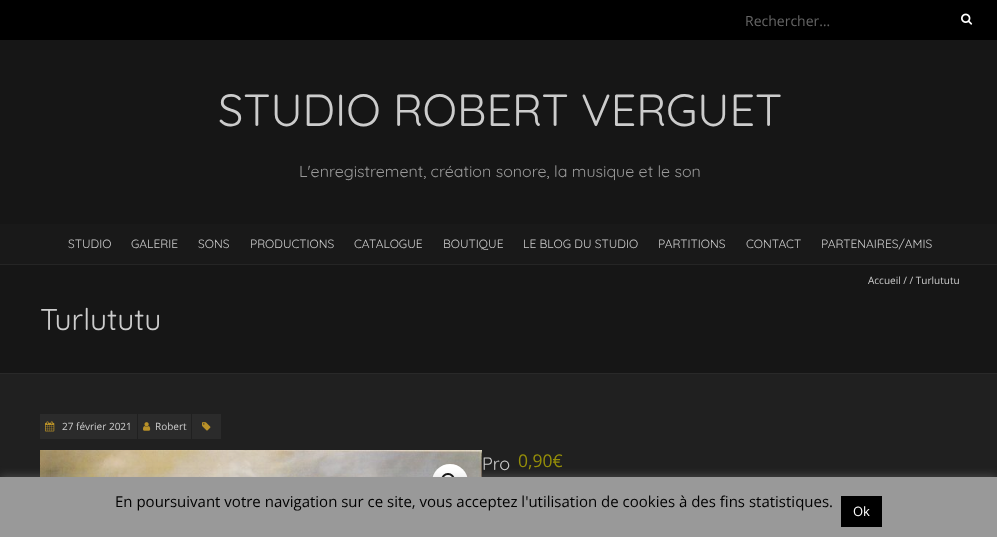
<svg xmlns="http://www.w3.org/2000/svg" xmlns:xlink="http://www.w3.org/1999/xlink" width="997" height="537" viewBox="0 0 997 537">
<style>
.cls-1{font:14px Open Sans;fill:#666666}
.cls-2{font:45px Quicksand;fill:#cccccc}
.cls-3{font:16px Quicksand;fill:#999999}
.cls-4{font:12px Quicksand;fill:#cccccc}
.cls-5{font:10px Open Sans;fill:#cccccc}
.cls-6{font:30px Quicksand;fill:#cccccc}
.cls-7{font:18px Quicksand;fill:#cccccc}
.cls-8{font:17.5px Open Sans;fill:#958e09}
.cls-9{font:15px Open Sans;fill:#000000}
.cls-10{font:13px Open Sans;fill:#ffffff}
</style>
<rect width="100%" height="100%" fill="#202020"/>
<rect fill="#000000" x="0" y="0" width="997" height="40"/>
<image xlink:href="image0.png" x="961" y="13" width="12" height="12"/>
<rect fill="#161616" x="0" y="40" width="997" height="184"/>
<rect fill="#191919" x="0" y="224" width="997" height="40"/>
<rect fill="#252525" x="0" y="264" width="997" height="1"/>
<rect fill="#161616" x="0" y="265" width="997" height="108"/>
<rect fill="#292929" x="0" y="373" width="997" height="1"/>
<rect fill="#2b2b2b" x="40" y="414" width="97" height="25"/>
<image xlink:href="image1.png" x="45" y="421" width="10" height="11"/>
<rect fill="#2b2b2b" x="138" y="414" width="53" height="25"/>
<image xlink:href="image2.png" x="143" y="422" width="8" height="9"/>
<rect fill="#2b2b2b" x="192" y="414" width="29" height="25"/>
<image xlink:href="image3.png" x="202" y="422" width="9" height="9"/>
<image xlink:href="image4.png" x="40" y="450" width="442" height="27"/>
<circle fill="#ffffff" cx="450" cy="482" r="18"/>
<circle fill="none" stroke="#000000" stroke-width="2" cx="448" cy="480" r="6"/>
<rect fill="#acabab" fill-opacity="0.3" filter="blur(5px)" x="0" y="476" width="997" height="60"/>
<rect fill="#999999" x="0" y="477" width="997" height="60"/>
<rect fill="#000000" x="841" y="496" width="41" height="31"/>
<text class="cls-1" x="745" y="26">Rechercher…</text>
<text class="cls-2" x="218" y="126">STUDIO ROBERT VERGUET</text>
<text class="cls-3" x="299" y="177">L'enregistrement, création sonore, la musique et le son</text>
<text class="cls-4" x="68" y="248">STUDIO</text>
<text class="cls-4" x="131" y="248">GALERIE</text>
<text class="cls-4" x="198" y="248">SONS</text>
<text class="cls-4" x="250" y="248">PRODUCTIONS</text>
<text class="cls-4" x="354" y="248">CATALOGUE</text>
<text class="cls-4" x="443" y="248">BOUTIQUE</text>
<text class="cls-4" x="523" y="248">LE BLOG DU STUDIO</text>
<text class="cls-4" x="658" y="248">PARTITIONS</text>
<text class="cls-4" x="746" y="248">CONTACT</text>
<text class="cls-4" x="821" y="248">PARTENAIRES/AMIS</text>
<text class="cls-5" x="868" y="284">Accueil / / Turlututu</text>
<text class="cls-6" x="40" y="330">Turlututu</text>
<text class="cls-5" x="62" y="430">27 février 2021</text>
<text class="cls-5" x="155" y="430">Robert</text>
<text class="cls-7" x="482" y="470">Pro</text>
<text class="cls-8" x="518" y="467">0,90€</text>
<text class="cls-9" x="115" y="507">En poursuivant votre navigation sur ce site, vous acceptez l'utilisation de cookies à des fins statistiques.</text>
<text class="cls-10" x="853" y="516">Ok</text>
</svg>
